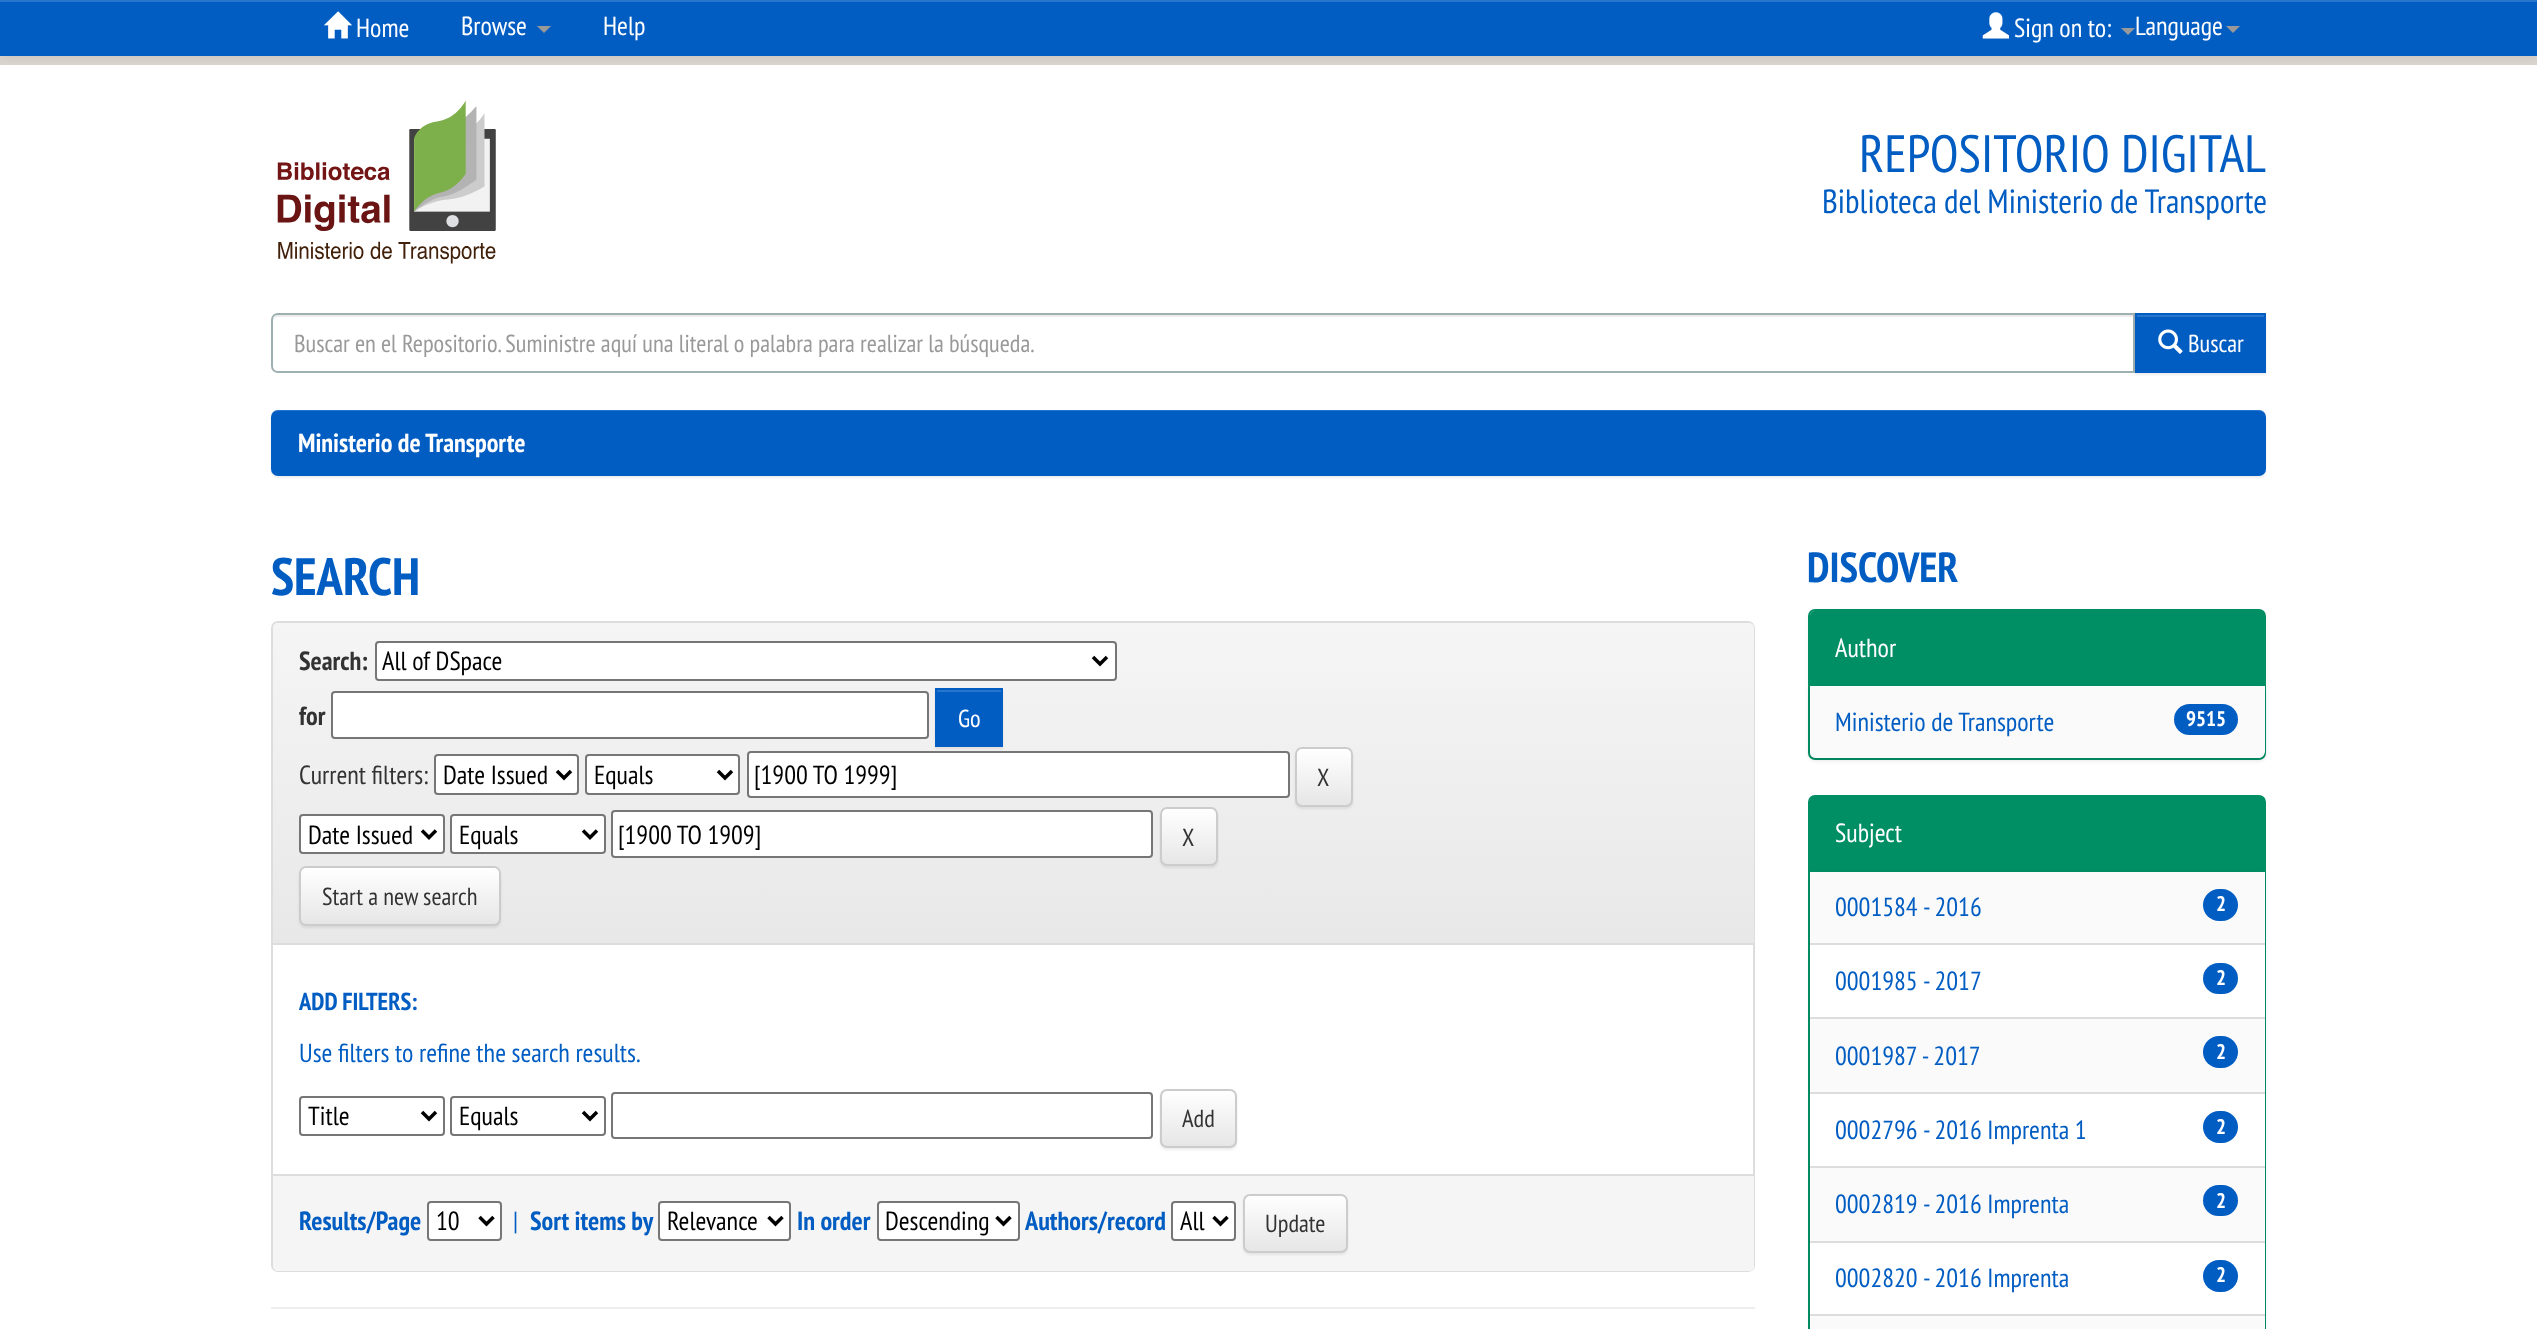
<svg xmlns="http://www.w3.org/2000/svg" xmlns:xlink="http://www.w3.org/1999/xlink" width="2537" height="1329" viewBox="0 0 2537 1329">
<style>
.cls-1{font:26.25px PT Sans Narrow;fill:#ffffff}
.cls-2{font:52.5px PT Sans Narrow;fill:#025dc3}
.cls-3{font:33.5px PT Sans Narrow;fill:#025dc3}
.cls-4{font:24.5px PT Sans Narrow;fill:#999999}
.cls-5{font:24.5px PT Sans Narrow;fill:#ffffff}
.cls-6{font:bold 26.25px PT Sans Narrow;fill:#ffffff}
.cls-7{font:bold 52.5px PT Sans Narrow;fill:#025dc3}
.cls-8{font:bold 26.25px PT Sans Narrow;fill:#333333}
.cls-9{font:26.25px PT Sans Narrow;fill:#000000}
.cls-10{font:26.25px PT Sans Narrow;fill:#333333}
.cls-11{font:24.5px PT Sans Narrow;fill:#333333}
.cls-12{font:bold 24.5px PT Sans Narrow;fill:#025dc3}
.cls-13{font:26.25px PT Sans Narrow;fill:#025dc3}
.cls-14{font:bold 26.25px PT Sans Narrow;fill:#025dc3}
.cls-15{font:bold 42px PT Sans Narrow;fill:#025dc3}
.cls-16{font:bold 21px PT Sans Narrow;fill:#ffffff}
</style>
<defs>
<linearGradient id="g1" gradientUnits="userSpaceOnUse" x1="1013" y1="623" x2="1013" y2="943"><stop offset="0" stop-color="#f5f5f5"/><stop offset="1" stop-color="#e8e8e8"/></linearGradient>
<clipPath id="clip1"><rect x="1295" y="747" width="58" height="60" rx="7"/></clipPath>
<linearGradient id="g2" gradientUnits="userSpaceOnUse" x1="1324" y1="749" x2="1324" y2="805"><stop offset="0" stop-color="#ffffff"/><stop offset="1" stop-color="#e6e6e6"/></linearGradient>
<clipPath id="clip2"><rect x="1160" y="807" width="58" height="59" rx="7"/></clipPath>
<linearGradient id="g3" gradientUnits="userSpaceOnUse" x1="1189" y1="809" x2="1189" y2="865"><stop offset="0" stop-color="#ffffff"/><stop offset="1" stop-color="#e6e6e6"/></linearGradient>
<clipPath id="clip3"><rect x="299" y="866" width="202" height="60" rx="7"/></clipPath>
<linearGradient id="g4" gradientUnits="userSpaceOnUse" x1="400" y1="868" x2="400" y2="924"><stop offset="0" stop-color="#ffffff"/><stop offset="1" stop-color="#e6e6e6"/></linearGradient>
<clipPath id="clip4"><rect x="1160" y="1089" width="77" height="59" rx="7"/></clipPath>
<linearGradient id="g5" gradientUnits="userSpaceOnUse" x1="1199" y1="1090" x2="1199" y2="1146"><stop offset="0" stop-color="#ffffff"/><stop offset="1" stop-color="#e6e6e6"/></linearGradient>
<clipPath id="clip5"><rect x="1243" y="1194" width="105" height="59" rx="7"/></clipPath>
<linearGradient id="g6" gradientUnits="userSpaceOnUse" x1="1295" y1="1195" x2="1295" y2="1251"><stop offset="0" stop-color="#ffffff"/><stop offset="1" stop-color="#e6e6e6"/></linearGradient>
</defs>
<rect width="100%" height="100%" fill="#ffffff"/>
<rect fill="#dad5ce" x="0" y="56" width="2537" height="9"/>
<rect fill="#000000" fill-opacity="0.07" filter="blur(4.5px)" x="0" y="2" width="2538" height="56"/>
<rect fill="#025dc3" x="0" y="2" width="2537" height="54"/>
<rect fill="#2875cc" x="0" y="0" width="2537" height="2"/>
<image xlink:href="image0.png" x="324" y="11" width="28" height="28"/>
<path fill="#999999" d="M537 26H551L544 33Z"/>
<image xlink:href="image1.png" x="1982" y="12" width="27" height="27"/>
<path fill="#999999" d="M2121 28H2135L2128 35Z"/>
<path fill="#999999" d="M2226 26H2240L2233 33Z"/>
<image xlink:href="image2.png" x="277" y="100" width="219" height="164"/>
<path fill="#ececec" d="M278 317H2133V315H278C274 315 273 319 273 322C273 319 275 317 278 317Z"/>
<path fill="none" stroke="#9dafb0" stroke-width="2" d="M278 314H2134V372H278C274.5 372 272 369.5 272 366V320C272 316.5 274.5 314 278 314Z"/>
<rect fill="#000000" fill-opacity="0.07" filter="blur(1px)" x="2135" y="315" width="131" height="60"/>
<rect fill="#025dc3" x="2137" y="317" width="127" height="54"/>
<rect fill="#2875cc" x="2137" y="315" width="128" height="2"/>
<rect fill="none" stroke="#025dc3" stroke-width="2" x="2136" y="314" width="129" height="58"/>
<image xlink:href="image3.png" x="2158" y="329" width="25" height="25"/>
<rect fill="#000000" fill-opacity="0.07" filter="blur(1px)" x="271" y="411" width="1995" height="67" rx="7"/>
<rect fill="#025dc3" x="271" y="410" width="1995" height="66" rx="7"/>
<path fill="#ffffff" fill-opacity="0.15" d="M278 411H2259C2263 411 2266 414 2266 418V417C2266 413 2263 410 2259 410H278C274 410 271 413 271 417V418C271 414 274 411 278 411Z"/>
<rect fill="none" stroke="#dddddd" stroke-width="2" x="272" y="622" width="1482" height="649" rx="6"/>
<path fill="url(#g1)" d="M278 623H1749C1752 623 1754 625 1754 628V943H273V628C273 625 275 623 278 623Z"/>
<rect fill="#dddddd" x="273" y="943" width="1481" height="2"/>
<rect fill="#ffffff" stroke="#767676" stroke-width="2" x="376" y="642" width="740" height="38" rx="3"/>
<path fill="none" stroke="#000000" stroke-width="3.5" d="M1093 657L1100 664L1107 657"/>
<rect fill="#ffffff" stroke="#767676" stroke-width="2" x="332" y="692" width="596" height="46" rx="3"/>
<rect fill="#ffffff" stroke="#767676" stroke-width="2" x="748" y="752" width="541" height="45" rx="3"/>
<rect fill="#000000" fill-opacity="0.07" filter="blur(1px)" x="935" y="690" width="68" height="59"/>
<rect fill="#025dc3" x="937" y="692" width="64" height="53"/>
<rect fill="#2875cc" x="936" y="690" width="65" height="2"/>
<rect fill="none" stroke="#025dc3" stroke-width="2" x="936" y="689" width="66" height="57"/>
<rect fill="#ffffff" stroke="#767676" stroke-width="2" x="435" y="755" width="143" height="39" rx="3"/>
<path fill="none" stroke="#000000" stroke-width="3.5" d="M557 771L564 778L571 771"/>
<rect fill="#ffffff" stroke="#767676" stroke-width="2" x="586" y="755" width="153" height="39" rx="3"/>
<path fill="none" stroke="#000000" stroke-width="3.5" d="M718 771L725 778L732 771"/>
<rect fill="#000000" fill-opacity="0.07" filter="blur(1px)" x="1295" y="749" width="58" height="60" rx="7"/>
<g clip-path="url(#clip1)">
<rect fill="url(#g2)" x="1295" y="749" width="58" height="56"/>
</g>
<rect fill="none" stroke="#cccccc" stroke-width="2" x="1296" y="748" width="56" height="58" rx="6"/>
<rect fill="#ffffff" stroke="#767676" stroke-width="2" x="300" y="815" width="144" height="38" rx="3"/>
<path fill="none" stroke="#000000" stroke-width="3.5" d="M422 830.5L429 837.5L436 830.5"/>
<rect fill="#ffffff" stroke="#767676" stroke-width="2" x="451" y="815" width="154" height="38" rx="3"/>
<path fill="none" stroke="#000000" stroke-width="3.5" d="M583 830.5L590 837.5L597 830.5"/>
<rect fill="#ffffff" stroke="#767676" stroke-width="2" x="612" y="811" width="540" height="46" rx="3"/>
<rect fill="#000000" fill-opacity="0.07" filter="blur(1px)" x="1160" y="809" width="58" height="59" rx="7"/>
<g clip-path="url(#clip2)">
<rect fill="url(#g3)" x="1160" y="809" width="58" height="56"/>
</g>
<rect fill="none" stroke="#cccccc" stroke-width="2" x="1161" y="808" width="56" height="57" rx="6"/>
<rect fill="#000000" fill-opacity="0.07" filter="blur(1px)" x="299" y="868" width="202" height="60" rx="7"/>
<g clip-path="url(#clip3)">
<rect fill="url(#g4)" x="299" y="868" width="202" height="56"/>
</g>
<rect fill="none" stroke="#cccccc" stroke-width="2" x="300" y="867" width="200" height="58" rx="6"/>
<rect fill="none" stroke="#767676" stroke-width="2" x="300" y="1097" width="144" height="38" rx="3"/>
<path fill="none" stroke="#000000" stroke-width="3.5" d="M422 1112L429 1119L436 1112"/>
<rect fill="none" stroke="#767676" stroke-width="2" x="451" y="1097" width="154" height="38" rx="3"/>
<path fill="none" stroke="#000000" stroke-width="3.5" d="M583 1112L590 1119L597 1112"/>
<rect fill="none" stroke="#767676" stroke-width="2" x="612" y="1093" width="540" height="45" rx="3"/>
<rect fill="#000000" fill-opacity="0.07" filter="blur(1px)" x="1160" y="1090" width="77" height="60" rx="7"/>
<g clip-path="url(#clip4)">
<rect fill="url(#g5)" x="1160" y="1090" width="77" height="56"/>
</g>
<rect fill="none" stroke="#cccccc" stroke-width="2" x="1161" y="1090" width="75" height="57" rx="6"/>
<path fill="#f5f5f5" d="M273 1174H1754V1266C1754 1269 1752 1271 1749 1271H278C275 1271 273 1269 273 1266Z"/>
<rect fill="#dddddd" x="273" y="1174" width="1481" height="2"/>
<rect fill="#ffffff" stroke="#767676" stroke-width="2" x="428" y="1202" width="73" height="38" rx="3"/>
<path fill="none" stroke="#000000" stroke-width="3.5" d="M479.5 1217L486.5 1224L493.5 1217"/>
<rect fill="#ffffff" stroke="#767676" stroke-width="2" x="659" y="1202" width="131" height="38" rx="3"/>
<path fill="none" stroke="#000000" stroke-width="3.5" d="M768.5 1217L775.5 1224L782.5 1217"/>
<rect fill="#ffffff" stroke="#767676" stroke-width="2" x="878" y="1202" width="141" height="38" rx="3"/>
<path fill="none" stroke="#000000" stroke-width="3.5" d="M996.5 1217L1003.5 1224L1010.5 1217"/>
<rect fill="#ffffff" stroke="#767676" stroke-width="2" x="1172" y="1202" width="63" height="38" rx="3"/>
<path fill="none" stroke="#000000" stroke-width="3.5" d="M1213.5 1217L1220.5 1224L1227.5 1217"/>
<rect fill="#000000" fill-opacity="0.07" filter="blur(1px)" x="1243" y="1195" width="105" height="60" rx="7"/>
<g clip-path="url(#clip5)">
<rect fill="url(#g6)" x="1243" y="1195" width="105" height="56"/>
</g>
<rect fill="none" stroke="#cccccc" stroke-width="2" x="1244" y="1195" width="103" height="57" rx="6"/>
<rect fill="#eeeeee" x="271" y="1307" width="1484" height="2"/>
<rect fill="#000000" fill-opacity="0.05" filter="blur(2px)" x="1808" y="611" width="458" height="150" rx="7"/>
<rect fill="none" stroke="#008e65" stroke-width="2" x="1809" y="610" width="456" height="149" rx="6"/>
<path fill="#008e65" d="M1815 611H2260C2263 611 2265 613 2265 616V686H1810V616C1810 613 1812 611 1815 611Z"/>
<rect fill="#000000" fill-opacity="0.07" filter="blur(2px)" x="1810" y="688" width="455" height="72" rx="7"/>
<path fill="#fafafa" d="M1810 686H2265V751C2265 755 2262 758 2258 758H1817C1813 758 1810 755 1810 751Z"/>
<rect fill="#025dc3" x="2174" y="704" width="64" height="31" rx="15.5"/>
<rect fill="none" stroke="#008e65" stroke-width="2" x="1809" y="796" width="456" height="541" rx="6"/>
<path fill="#008e65" d="M1815 796H2260C2263 796 2265 798 2265 801V872H1810V801C1810 798 1812 796 1815 796Z"/>
<rect fill="#000000" fill-opacity="0.07" filter="blur(2px)" x="1810" y="873" width="455" height="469" rx="7"/>
<rect fill="#fafafa" x="1810" y="872" width="455" height="71"/>
<rect fill="#dddddd" x="1810" y="943" width="455" height="2"/>
<rect fill="#025dc3" x="2203" y="889" width="35" height="32" rx="16"/>
<rect fill="#ffffff" x="1810" y="945" width="455" height="72"/>
<rect fill="#dddddd" x="1810" y="1017" width="455" height="2"/>
<rect fill="#025dc3" x="2203" y="963" width="35" height="31" rx="15.5"/>
<rect fill="#fafafa" x="1810" y="1019" width="455" height="73"/>
<rect fill="#dddddd" x="1810" y="1092" width="455" height="2"/>
<rect fill="#025dc3" x="2203" y="1036" width="35" height="32" rx="16"/>
<rect fill="#ffffff" x="1810" y="1094" width="455" height="72"/>
<rect fill="#025dc3" x="2203" y="1111" width="35" height="32" rx="16"/>
<rect fill="#fafafa" x="1810" y="1168" width="455" height="73"/>
<rect fill="#dddddd" x="1810" y="1166" width="455" height="2"/>
<rect fill="#dddddd" x="1810" y="1241" width="455" height="2"/>
<rect fill="#025dc3" x="2203" y="1185" width="35" height="31" rx="15.5"/>
<rect fill="#ffffff" x="1810" y="1243" width="455" height="71"/>
<rect fill="#dddddd" x="1810" y="1314" width="455" height="2"/>
<rect fill="#025dc3" x="2203" y="1260" width="35" height="32" rx="16"/>
<rect fill="#fafafa" x="1810" y="1316" width="455" height="13"/>
<text class="cls-1" x="356" y="37">Home</text>
<text class="cls-1" x="461" y="35">Browse</text>
<text class="cls-1" x="603" y="35">Help</text>
<text class="cls-1" x="2014" y="37">Sign on to:</text>
<text class="cls-1" x="2135" y="35">Language</text>
<text class="cls-2" x="1859" y="172">REPOSITORIO DIGITAL</text>
<text class="cls-3" x="1822" y="213">Biblioteca del Ministerio de Transporte</text>
<text class="cls-4" x="294" y="352">Buscar en el Repositorio. Suministre aquí una literal o palabra para realizar la búsqueda.</text>
<text class="cls-5" x="2188" y="352">Buscar</text>
<text class="cls-6" x="298" y="452">Ministerio de Transporte</text>
<text class="cls-7" x="271" y="595">SEARCH</text>
<text class="cls-8" x="299" y="670">Search:</text>
<text class="cls-9" x="382" y="670">All of DSpace</text>
<text class="cls-8" x="299" y="725">for</text>
<text class="cls-5" x="958" y="727">Go</text>
<text class="cls-10" x="299" y="784">Current filters:</text>
<text class="cls-9" x="443" y="784">Date Issued</text>
<text class="cls-9" x="594" y="784">Equals</text>
<text class="cls-9" x="754" y="784">[1900 TO 1999]</text>
<text class="cls-11" x="1317" y="786">X</text>
<text class="cls-9" x="308" y="844">Date Issued</text>
<text class="cls-9" x="459" y="844">Equals</text>
<text class="cls-9" x="618" y="844">[1900 TO 1909]</text>
<text class="cls-11" x="1182" y="846">X</text>
<text class="cls-11" x="322" y="905">Start a new search</text>
<text class="cls-12" x="299" y="1010">ADD FILTERS:</text>
<text class="cls-13" x="299" y="1062">Use filters to refine the search results.</text>
<text class="cls-9" x="308" y="1125">Title</text>
<text class="cls-9" x="459" y="1125">Equals</text>
<text class="cls-11" x="1182" y="1127">Add</text>
<text class="cls-14" x="299" y="1230">Results/Page</text>
<text class="cls-9" x="436" y="1230">10</text>
<text class="cls-13" x="513" y="1230">|</text>
<text class="cls-14" x="530" y="1230">Sort items by</text>
<text class="cls-9" x="667" y="1230">Relevance</text>
<text class="cls-14" x="797" y="1230">In order</text>
<text class="cls-9" x="885" y="1230">Descending</text>
<text class="cls-14" x="1025" y="1230">Authors/record</text>
<text class="cls-9" x="1180" y="1230">All</text>
<text class="cls-11" x="1265" y="1232">Update</text>
<text class="cls-15" x="1807" y="582">DISCOVER</text>
<text class="cls-1" x="1835" y="657">Author</text>
<text class="cls-13" x="1835" y="731">Ministerio de Transporte</text>
<text class="cls-16" x="2186" y="726">9515</text>
<text class="cls-1" x="1835" y="842">Subject</text>
<text class="cls-13" x="1835" y="916">0001584 - 2016</text>
<text class="cls-16" x="2216" y="911">2</text>
<text class="cls-13" x="1835" y="990">0001985 - 2017</text>
<text class="cls-16" x="2216" y="985">2</text>
<text class="cls-13" x="1835" y="1065">0001987 - 2017</text>
<text class="cls-16" x="2216" y="1059">2</text>
<text class="cls-13" x="1835" y="1139">0002796 - 2016 Imprenta 1</text>
<text class="cls-16" x="2216" y="1134">2</text>
<text class="cls-13" x="1835" y="1213">0002819 - 2016 Imprenta</text>
<text class="cls-16" x="2216" y="1208">2</text>
<text class="cls-13" x="1835" y="1287">0002820 - 2016 Imprenta</text>
<text class="cls-16" x="2216" y="1282">2</text>
</svg>
